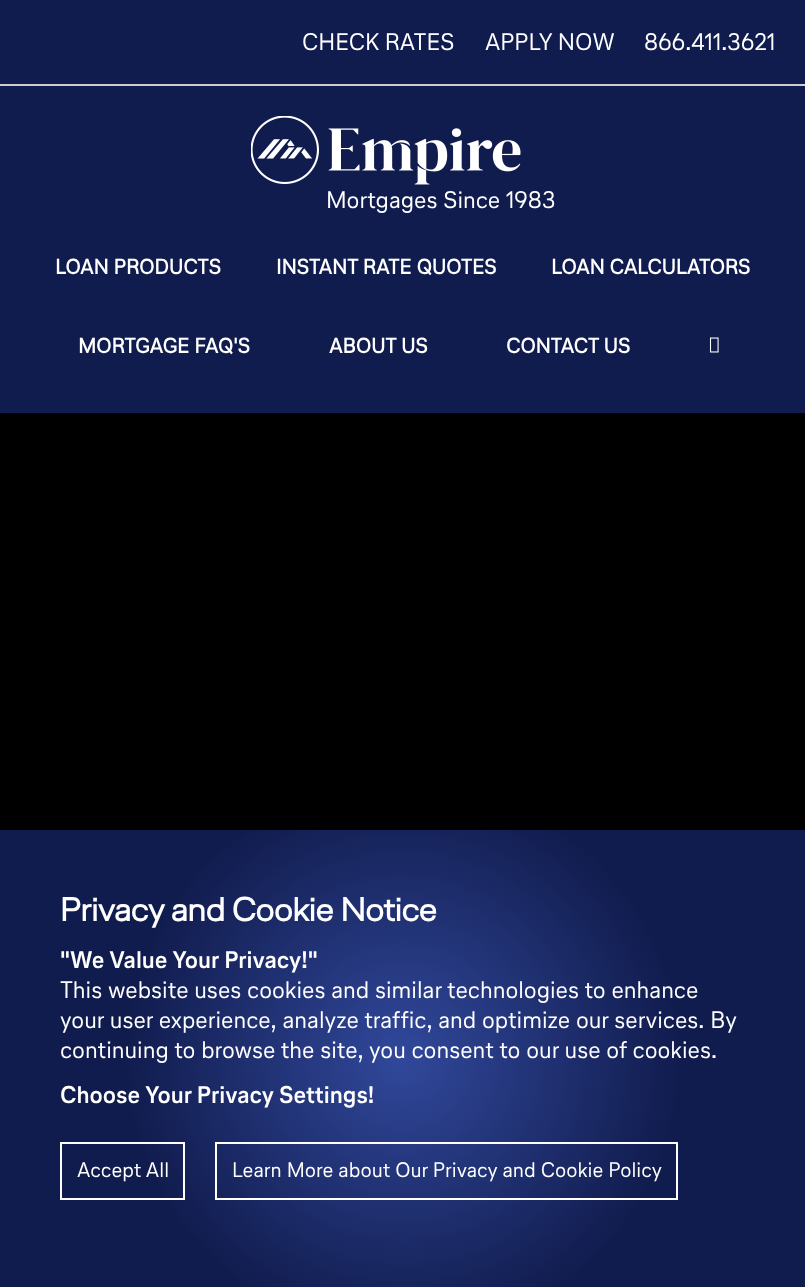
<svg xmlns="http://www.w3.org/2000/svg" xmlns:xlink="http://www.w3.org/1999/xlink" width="805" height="1287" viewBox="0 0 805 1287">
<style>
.cls-1{font:24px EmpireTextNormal;fill:#ffffff}
.cls-2{font:bold 21px EmpireTextNormal;fill:#ffffff}
.cls-3{font:bold 33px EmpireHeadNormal;fill:#ffffff}
.cls-4{font:bold 24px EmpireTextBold;fill:#ffffff}
.cls-5{font:21px EmpireTextNormal;fill:#ffffff}
</style>
<defs>
<radialGradient id="g1" gradientUnits="userSpaceOnUse" cx="403" cy="1058" r="463"><stop offset="0" stop-color="#31489b"/><stop offset="0.6" stop-color="#111c4e"/></radialGradient>
</defs>
<rect width="100%" height="100%" fill="#000000"/>
<rect fill="#111c4e" x="0" y="0" width="805" height="84"/>
<rect fill="#111c4e" x="0" y="86" width="805" height="327"/>
<rect fill="#cdcdcd" x="0" y="84" width="805" height="2"/>
<image xlink:href="image0.png" x="251" y="116" width="270" height="69"/>
<image xlink:href="image1.png" x="709" y="337" width="10" height="16"/>
<rect fill="url(#g1)" x="0" y="830" width="805" height="457"/>
<rect fill="none" stroke="#ffffff" stroke-width="2" x="61" y="1143" width="123" height="56"/>
<rect fill="none" stroke="#ffffff" stroke-width="2" x="216" y="1143" width="461" height="56"/>
<text class="cls-1" x="302" y="50">CHECK RATES</text>
<text class="cls-1" x="485" y="50">APPLY NOW</text>
<text class="cls-1" x="644" y="50">866.411.3621</text>
<text class="cls-1" x="326" y="208">Mortgages Since 1983</text>
<text class="cls-2" x="55" y="274">LOAN PRODUCTS</text>
<text class="cls-2" x="276" y="274">INSTANT RATE QUOTES</text>
<text class="cls-2" x="551" y="274">LOAN CALCULATORS</text>
<text class="cls-2" x="78" y="353">MORTGAGE FAQ'S</text>
<text class="cls-2" x="329" y="353">ABOUT US</text>
<text class="cls-2" x="506" y="353">CONTACT US</text>
<text class="cls-3" x="60" y="921">Privacy and Cookie Notice</text>
<text class="cls-4" x="60" y="968">"We Value Your Privacy!"</text>
<text class="cls-1"><tspan x="60" y="998">This website uses cookies and similar technologies to enhance</tspan><tspan x="60" y="1028">your user experience, analyze traffic, and optimize our services. By</tspan><tspan x="60" y="1058">continuing to browse the site, you consent to our use of cookies.</tspan></text>
<text class="cls-4" x="60" y="1103">Choose Your Privacy Settings!</text>
<text class="cls-5" x="77" y="1177">Accept All</text>
<text class="cls-5" x="232" y="1177">Learn More about Our Privacy and Cookie Policy</text>
</svg>
